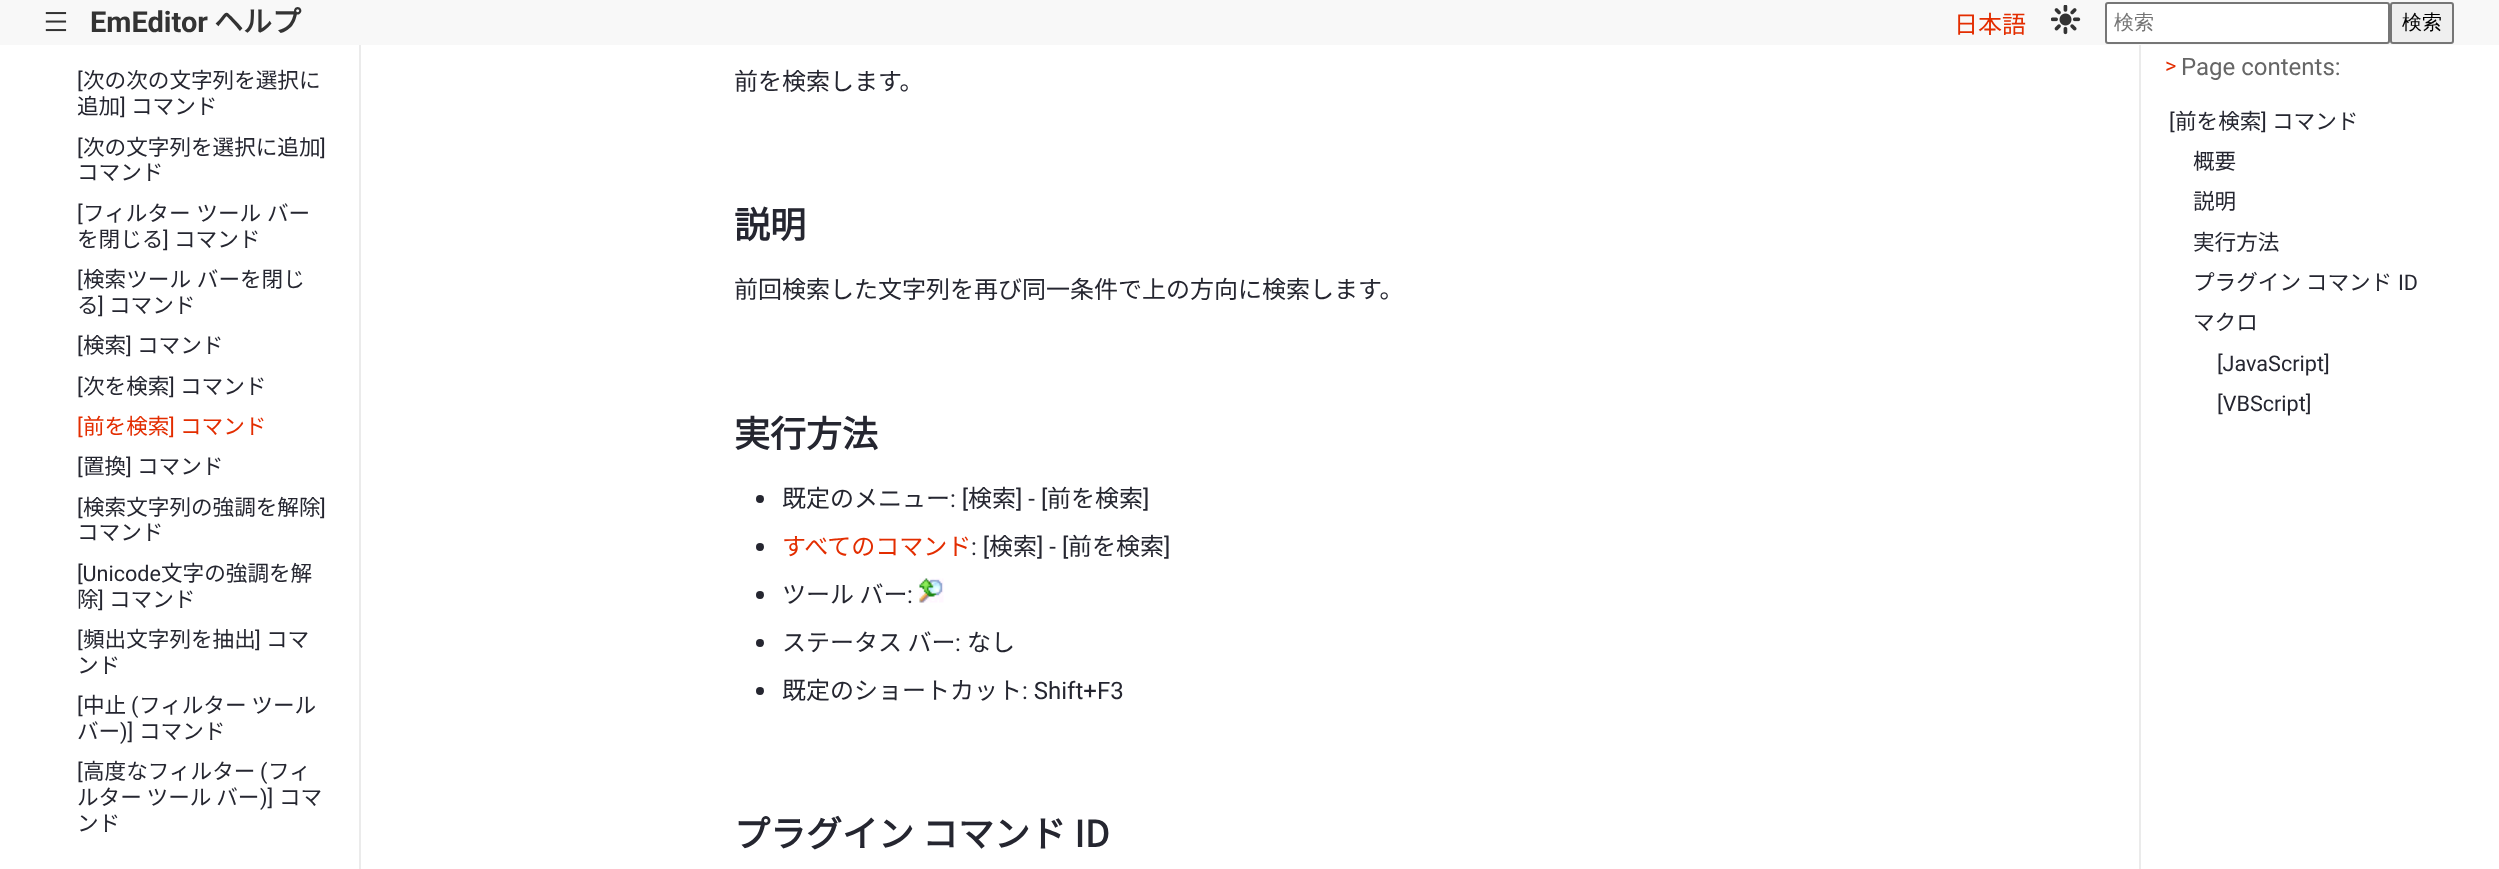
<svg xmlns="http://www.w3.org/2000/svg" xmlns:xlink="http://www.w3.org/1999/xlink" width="2499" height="869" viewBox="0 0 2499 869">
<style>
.cls-1{font:bold 24px Roboto;letter-spacing:2.5px;fill:#333333}
.cls-2{font:bold 29px Roboto;fill:#333333}
.cls-3{font:bold 29px Noto Sans JP;fill:#333333}
.cls-4{font:100 24px Noto Sans JP;fill:#e32d00}
.cls-5{font:500 20px WenQuanYi Zen Hei;fill:#757575}
.cls-6{font:500 20px WenQuanYi Zen Hei;fill:#000000}
.cls-7{font:21.6px Roboto;fill:#252630}
.cls-8{font:100 21.6px Noto Sans JP;fill:#252630}
.cls-9{font:21.6px Roboto;fill:#e32d00}
.cls-10{font:100 21.6px Noto Sans JP;fill:#e32d00}
.cls-11{font:100 24px Noto Sans JP;fill:#252630}
.cls-12{font:bold 36px Noto Sans JP;fill:#252630}
.cls-13{font:24px Roboto;fill:#252630}
.cls-14{font:24px Roboto;fill:#666666}
</style>
<rect width="100%" height="100%" fill="#ffffff"/>
<rect fill="#f8f8f8" x="0" y="0" width="2499" height="45"/>
<image xlink:href="image0.png" x="2051" y="5" width="30" height="30"/>
<rect fill="#ffffff" stroke="#767676" stroke-width="2" x="2106" y="3" width="283" height="40" rx="2"/>
<rect fill="#efefef" stroke="#767676" stroke-width="2" x="2391" y="3" width="62" height="40" rx="2"/>
<rect fill="#ebebeb" x="359" y="45" width="2" height="824"/>
<circle fill="#252630" cx="760" cy="499" r="4"/>
<circle fill="#252630" cx="760" cy="547" r="4"/>
<circle fill="#252630" cx="760" cy="595" r="4"/>
<image xlink:href="image1.png" x="919" y="578" width="25" height="25"/>
<circle fill="#252630" cx="760" cy="643" r="4"/>
<circle fill="#252630" cx="760" cy="691" r="4"/>
<rect fill="#ebebeb" x="2139" y="45" width="2" height="824"/>
<text class="cls-1" x="49" y="10" transform="rotate(90 49 10)">|||</text>
<text class="cls-2" x="90" y="32">EmEditor</text>
<text class="cls-3" x="214" y="32">ヘルプ</text>
<text class="cls-4" x="1954" y="33">日本語</text>
<text class="cls-5" x="2114" y="29">検索</text>
<text class="cls-6" x="2402" y="29">検索</text>
<text class="cls-7" x="77" y="88">[</text>
<text class="cls-8" x="83" y="88">次の次の文字列を選択に</text>
<text class="cls-8" x="77" y="114">追加</text>
<text class="cls-7" x="120" y="114">]</text>
<text class="cls-8" x="131" y="114">コマンド</text>
<text class="cls-7" x="77" y="155">[</text>
<text class="cls-8" x="83" y="155">次の文字列を選択に追加</text>
<text class="cls-7" x="320" y="155">]</text>
<text class="cls-8" x="77" y="180">コマンド</text>
<text class="cls-7" x="77" y="221">[</text>
<text class="cls-8" x="83" y="221" word-spacing="1">フィルター ツール バー</text>
<text class="cls-8" x="77" y="247">を閉じる</text>
<text class="cls-7" x="163" y="247">]</text>
<text class="cls-8" x="174" y="247">コマンド</text>
<text class="cls-7" x="77" y="287">[</text>
<text class="cls-8" x="83" y="287" word-spacing="1">検索ツール バーを閉じ</text>
<text class="cls-8" x="77" y="313">る</text>
<text class="cls-7" x="98" y="313">]</text>
<text class="cls-8" x="109" y="313">コマンド</text>
<text class="cls-7" x="77" y="353">[</text>
<text class="cls-8" x="83" y="353">検索</text>
<text class="cls-7" x="126" y="353">]</text>
<text class="cls-8" x="137" y="353">コマンド</text>
<text class="cls-7" x="77" y="394">[</text>
<text class="cls-8" x="83" y="394">次を検索</text>
<text class="cls-7" x="169" y="394">]</text>
<text class="cls-8" x="180" y="394">コマンド</text>
<text class="cls-9" x="77" y="434">[</text>
<text class="cls-10" x="83" y="434">前を検索</text>
<text class="cls-9" x="169" y="434">]</text>
<text class="cls-10" x="180" y="434">コマンド</text>
<text class="cls-7" x="77" y="474">[</text>
<text class="cls-8" x="83" y="474">置換</text>
<text class="cls-7" x="126" y="474">]</text>
<text class="cls-8" x="137" y="474">コマンド</text>
<text class="cls-7" x="77" y="515">[</text>
<text class="cls-8" x="83" y="515">検索文字列の強調を解除</text>
<text class="cls-7" x="320" y="515">]</text>
<text class="cls-8" x="77" y="540">コマンド</text>
<text class="cls-7" x="77" y="581">[Unicode</text>
<text class="cls-8" x="161" y="581">文字の強調を解</text>
<text class="cls-8" x="77" y="607">除</text>
<text class="cls-7" x="98" y="607">]</text>
<text class="cls-8" x="109" y="607">コマンド</text>
<text class="cls-7" x="77" y="647">[</text>
<text class="cls-8" x="83" y="647">頻出文字列を抽出</text>
<text class="cls-7" x="255" y="647">]</text>
<text class="cls-8" x="266" y="647">コマ</text>
<text class="cls-8" x="77" y="673">ンド</text>
<text class="cls-7" x="77" y="713">[</text>
<text class="cls-8" x="83" y="713">中止</text>
<text class="cls-7" x="131" y="713">(</text>
<text class="cls-8" x="139" y="713">フィルター ツール</text>
<text class="cls-8" x="77" y="739">バー</text>
<text class="cls-7" x="120" y="739">)]</text>
<text class="cls-8" x="139" y="739">コマンド</text>
<text class="cls-7" x="77" y="779">[</text>
<text class="cls-8" x="83" y="779">高度なフィルター</text>
<text class="cls-7" x="260" y="779">(</text>
<text class="cls-8" x="268" y="779">フィ</text>
<text class="cls-8" x="77" y="805">ルター ツール バー</text>
<text class="cls-7" x="260" y="805">)]</text>
<text class="cls-8" x="279" y="805">コマ</text>
<text class="cls-8" x="77" y="831">ンド</text>
<text class="cls-11" x="734" y="90">前を検索します。</text>
<text class="cls-12" x="734" y="238">説明</text>
<text class="cls-11" x="734" y="298">前回検索した文字列を再び同一条件で上の方向に検索します。</text>
<text class="cls-12" x="734" y="447">実行方法</text>
<text class="cls-11" x="782" y="507">既定のメニュー</text>
<text class="cls-13" x="950" y="507">: [</text>
<text class="cls-11" x="968" y="507">検索</text>
<text class="cls-13" x="1016" y="507">] - [</text>
<text class="cls-11" x="1047" y="507">前を検索</text>
<text class="cls-13" x="1143" y="507">]</text>
<text class="cls-4" x="782" y="555">すべてのコマンド</text>
<text class="cls-13" x="971" y="555">: [</text>
<text class="cls-11" x="989" y="555">検索</text>
<text class="cls-13" x="1037" y="555">] - [</text>
<text class="cls-11" x="1068" y="555">前を検索</text>
<text class="cls-13" x="1164" y="555">]</text>
<text class="cls-11" x="782" y="603">ツール バー</text>
<text class="cls-13" x="907" y="603">:</text>
<text class="cls-11" x="782" y="651">ステータス バー</text>
<text class="cls-13" x="955" y="651">:</text>
<text class="cls-11" x="967" y="651">なし</text>
<text class="cls-11" x="782" y="699">既定のショートカット</text>
<text class="cls-13" x="1022" y="699">: Shift+F3</text>
<text class="cls-12" x="734" y="847">プラグイン コマンド ID</text>
<text class="cls-9" x="2165" y="73">&gt;</text>
<text class="cls-14" x="2181" y="75">Page contents:</text>
<text class="cls-7" x="2169" y="129">[</text>
<text class="cls-8" x="2175" y="129">前を検索</text>
<text class="cls-7" x="2261" y="129">]</text>
<text class="cls-8" x="2272" y="129">コマンド</text>
<text class="cls-8"><tspan x="2193" y="169">概要</tspan><tspan x="2193" y="209">説明</tspan><tspan x="2193" y="250">実行方法</tspan><tspan x="2193" y="290">プラグイン コマンド</tspan></text>
<text class="cls-7" x="2398" y="290">ID</text>
<text class="cls-8" x="2193" y="330">マクロ</text>
<text class="cls-7"><tspan x="2217" y="371">[JavaScript]</tspan><tspan x="2217" y="411">[VBScript]</tspan></text>
</svg>
